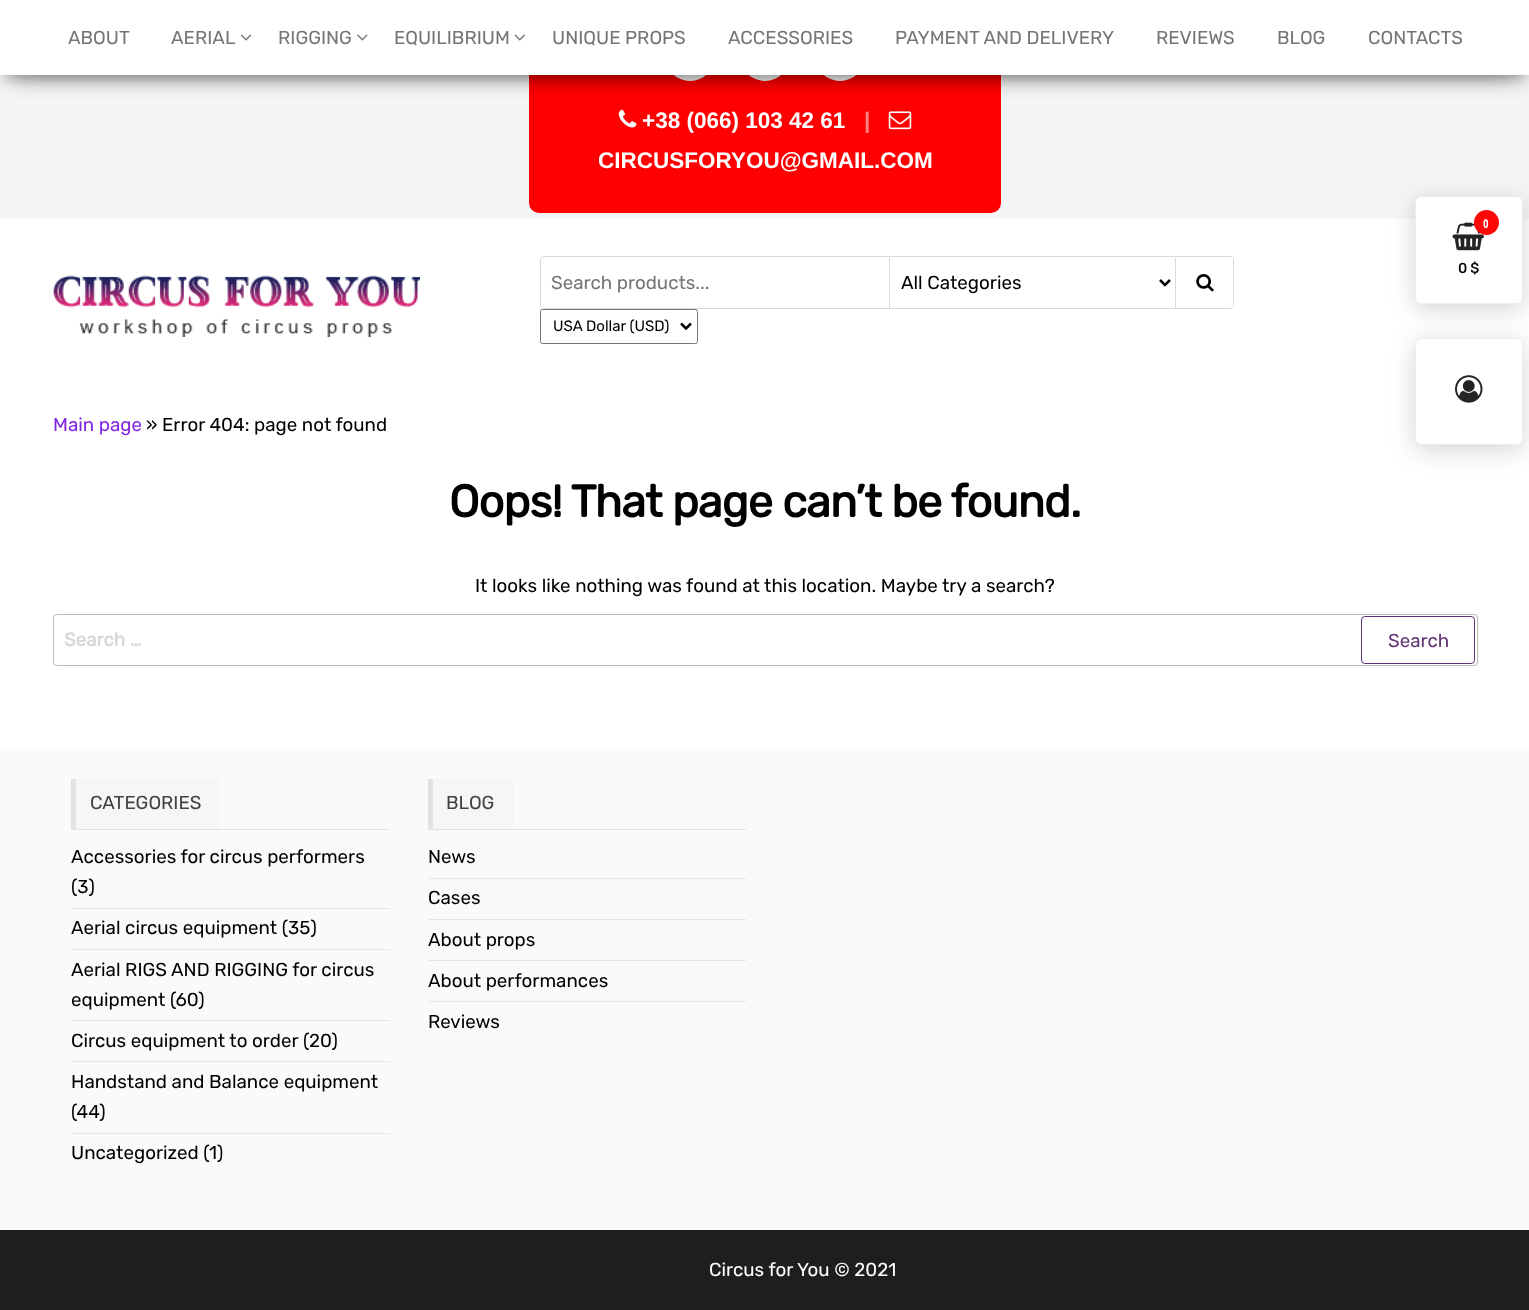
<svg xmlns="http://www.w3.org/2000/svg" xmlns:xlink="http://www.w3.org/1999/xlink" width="1529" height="1310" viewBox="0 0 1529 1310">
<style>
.cls-1{font:18.75px Rubik;fill:#757575}
.cls-2{font:bold 22.5px Liberation Sans;fill:#ffffff}
.cls-3{font:bold 22.5px Liberation Sans;fill:#ff8080}
.cls-4{font:bold 12px Open Sans Condensed;fill:#ffffff}
.cls-5{font:bold 14px Rubik;fill:#000000}
.cls-6{font:18.75px Rubik;fill:#000000}
.cls-7{font:15px Rubik;fill:#000000}
.cls-8{font:18.75px Rubik;fill:#8224e3}
.cls-9{font:bold 45px Rubik;letter-spacing:-0.9px;fill:#000000}
.cls-10{font:bold 18.75px Rubik;fill:#d7d7d7}
.cls-11{font:18.75px Rubik;fill:#623473}
.cls-12{font:18.75px Rubik;fill:#424242}
.cls-13{font:18.75px Rubik;fill:#ffffff}
</style>
<rect width="100%" height="100%" fill="#ffffff"/>
<rect fill="#f5f5f5" x="0" y="75" width="1529" height="144"/>
<rect fill="#ff0000" x="529" y="-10" width="472" height="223" rx="10"/>
<circle fill="#ffffff" cx="690" cy="56" r="25"/>
<circle fill="#ffffff" cx="765" cy="56" r="25"/>
<circle fill="#ffffff" cx="840" cy="56" r="25"/>
<rect fill="#000000" fill-opacity="0.2" filter="blur(6px)" x="6" y="16" width="1518" height="63"/>
<image xlink:href="image3.png" x="618" y="109" width="19" height="19"/>
<image xlink:href="image4.png" x="888" y="111" width="24" height="19"/>
<rect fill="#000000" fill-opacity="0.12" filter="blur(12.5px)" x="0" y="4" width="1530" height="75"/>
<rect fill="#000000" fill-opacity="0.42" filter="blur(12.5px)" x="15" y="28" width="1500" height="45"/>
<rect fill="#ffffff" x="0" y="0" width="1529" height="75"/>
<image xlink:href="image0.png" x="240" y="34" width="12" height="7"/>
<image xlink:href="image1.png" x="357" y="34" width="11" height="7"/>
<image xlink:href="image2.png" x="514" y="34" width="11" height="7"/>
<rect fill="#000000" fill-opacity="0.17" filter="blur(12.5px)" x="1415" y="343" width="108" height="107" rx="6"/>
<rect fill="#ffffff" stroke="#ededed" x="1415.5" y="338.5" width="107" height="106" rx="5.5"/>
<rect fill="#000000" fill-opacity="0.17" filter="blur(12.5px)" x="1415" y="201" width="108" height="108" rx="6"/>
<rect fill="#ffffff" stroke="#ededed" x="1415.5" y="196.5" width="107" height="107" rx="5.5"/>
<image xlink:href="image5.png" x="1452" y="222" width="32" height="29"/>
<circle fill="#ff0707" cx="1486.5" cy="222.5" r="12.5"/>
<image xlink:href="image6.png" x="1455" y="375" width="28" height="28"/>
<image xlink:href="image7.png" x="53" y="275" width="367" height="62"/>
<rect fill="none" stroke="#d9d9d9" x="540.5" y="256.5" width="693" height="52" rx="3.5"/>
<rect fill="#ffffff" x="541" y="258" width="3" height="50"/>
<rect fill="#d9d9d9" x="889" y="258" width="1" height="50"/>
<path fill="none" stroke="#000000" stroke-width="2.5" d="M1160 280L1165 285L1170 280"/>
<rect fill="#ffffff" x="1230" y="258" width="3" height="50"/>
<rect fill="#d9d9d9" x="1175" y="258" width="1" height="50"/>
<image xlink:href="image8.png" x="1196" y="274" width="18" height="18"/>
<rect fill="none" stroke="#767676" x="540.5" y="309.5" width="157" height="34" rx="2"/>
<path fill="none" stroke="#000000" stroke-width="2.5" d="M681 323.5L686 328.5L691 323.5"/>
<rect fill="none" stroke="#bbbbbb" x="53.5" y="614.5" width="1424" height="51" rx="3.5"/>
<rect fill="none" stroke="#623473" x="1361.5" y="616.5" width="113" height="47" rx="3.5"/>
<rect fill="#fafafa" x="0" y="748" width="1529" height="482"/>
<rect fill="#e2e2e2" x="71" y="829" width="319" height="1"/>
<rect fill="#f6f6f6" x="76" y="779" width="144" height="50"/>
<rect fill="#e2e2e2" x="71" y="779" width="5" height="50"/>
<rect fill="#e6e6e6" x="71" y="908" width="319" height="1"/>
<rect fill="#e6e6e6" x="71" y="949" width="319" height="1"/>
<rect fill="#e6e6e6" x="71" y="1020" width="319" height="1"/>
<rect fill="#e6e6e6" x="71" y="1061" width="319" height="1"/>
<rect fill="#e6e6e6" x="71" y="1133" width="319" height="1"/>
<rect fill="#e2e2e2" x="428" y="829" width="318" height="1"/>
<rect fill="#f6f6f6" x="433" y="779" width="81" height="50"/>
<rect fill="#e2e2e2" x="428" y="779" width="5" height="50"/>
<rect fill="#e6e6e6" x="428" y="878" width="318" height="1"/>
<rect fill="#e6e6e6" x="428" y="919" width="318" height="1"/>
<rect fill="#e6e6e6" x="428" y="960" width="318" height="1"/>
<rect fill="#e6e6e6" x="428" y="1001" width="318" height="1"/>
<rect fill="#1e1e1e" x="0" y="1230" width="1529" height="80"/>
<text class="cls-1" x="68" y="44">ABOUT</text>
<text class="cls-1" x="171" y="44">AERIAL</text>
<text class="cls-1" x="278" y="44">RIGGING</text>
<text class="cls-1" x="394" y="44">EQUILIBRIUM</text>
<text class="cls-1" x="552" y="44">UNIQUE PROPS</text>
<text class="cls-1" x="728" y="44">ACCESSORIES</text>
<text class="cls-1" x="895" y="44">PAYMENT AND DELIVERY</text>
<text class="cls-1" x="1156" y="44">REVIEWS</text>
<text class="cls-1" x="1277" y="44">BLOG</text>
<text class="cls-1" x="1368" y="44">CONTACTS</text>
<text class="cls-2" x="642" y="128">+38 (066) 103 42 61</text>
<text class="cls-3" x="864" y="128">|</text>
<text class="cls-2" x="598" y="168">CIRCUSFORYOU@GMAIL.COM</text>
<text class="cls-4" x="1483" y="228">0</text>
<text class="cls-5" x="1458" y="273">0 $</text>
<text class="cls-1" x="551" y="289">Search products...</text>
<text class="cls-6" x="901" y="289">All Categories</text>
<text class="cls-7" x="553" y="331">USA Dollar (USD)</text>
<text class="cls-8" x="53" y="431">Main page</text>
<text class="cls-6" x="146" y="431">» Error 404: page not found</text>
<text class="cls-9" x="449" y="517">Oops! That page can’t be found.</text>
<text class="cls-6" x="475" y="592">It looks like nothing was found at this location. Maybe try a search?</text>
<text class="cls-10" x="64" y="646">Search …</text>
<text class="cls-11" x="1388" y="647">Search</text>
<text class="cls-12" x="90" y="809">CATEGORIES</text>
<text class="cls-6"><tspan x="71" y="863">Accessories for circus performers</tspan><tspan x="71" y="893">(3)</tspan></text>
<text class="cls-6" x="71" y="934">Aerial circus equipment (35)</text>
<text class="cls-6"><tspan x="71" y="976">Aerial RIGS AND RIGGING for circus</tspan><tspan x="71" y="1006">equipment (60)</tspan></text>
<text class="cls-6" x="71" y="1047">Circus equipment to order</text>
<text class="cls-6" x="303" y="1047">(20)</text>
<text class="cls-6"><tspan x="71" y="1088">Handstand and Balance equipment</tspan><tspan x="71" y="1118">(44)</tspan></text>
<text class="cls-6" x="71" y="1159">Uncategorized (1)</text>
<text class="cls-12" x="446" y="809">BLOG</text>
<text class="cls-6" x="428" y="863">News</text>
<text class="cls-6" x="428" y="904">Cases</text>
<text class="cls-6" x="428" y="946">About props</text>
<text class="cls-6" x="428" y="987">About performances</text>
<text class="cls-6" x="428" y="1028">Reviews</text>
<text class="cls-13" x="709" y="1276">Circus for You © 2021</text>
</svg>
